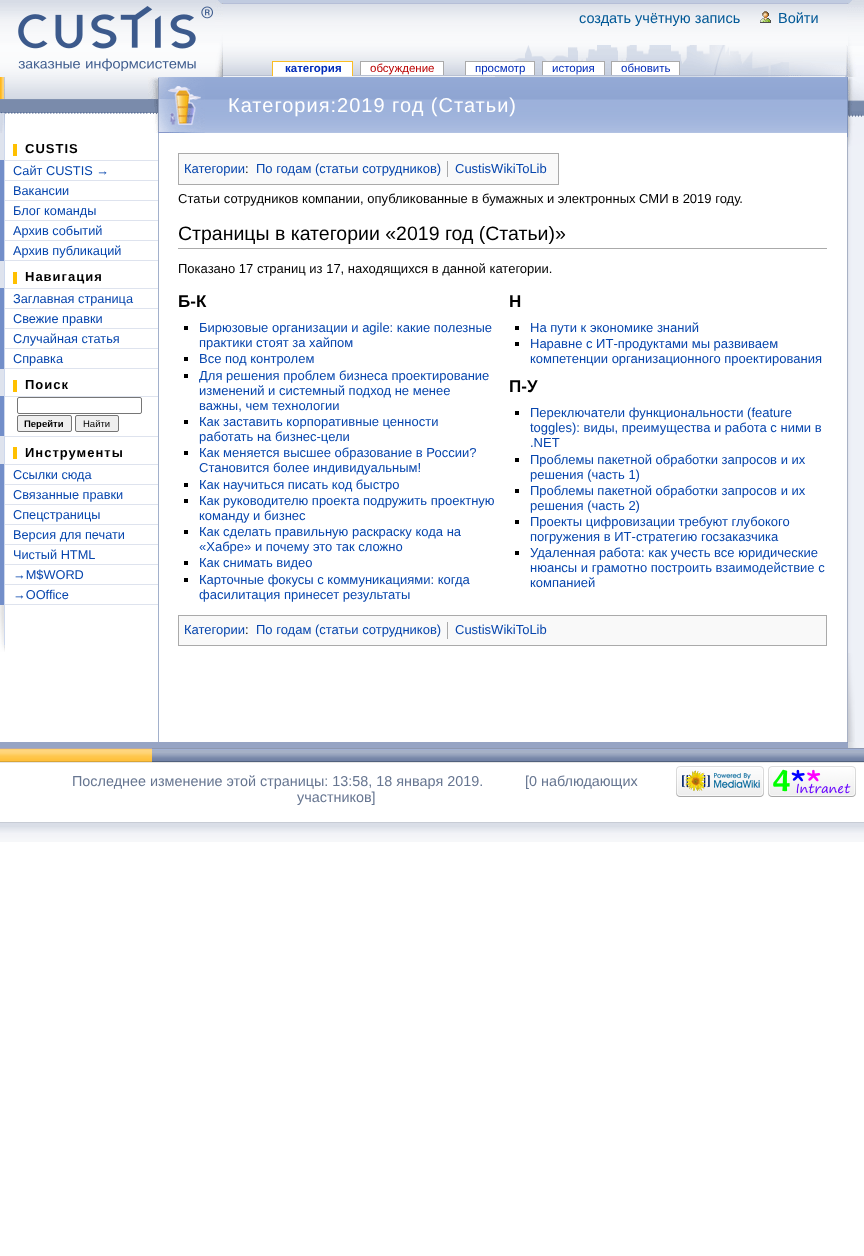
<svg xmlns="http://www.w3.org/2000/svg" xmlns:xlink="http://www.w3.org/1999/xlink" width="864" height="1256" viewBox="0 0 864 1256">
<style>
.cls-1{font:14.5px Liberation Sans;fill:#005896}
.cls-2{font:bold 11.5px Liberation Sans;fill:#002bb8}
.cls-3{font:11.5px Liberation Sans;fill:#ba0000}
.cls-4{font:11.5px Liberation Sans;fill:#002bb8}
.cls-5{font:bold 13px Liberation Sans;letter-spacing:1px;fill:#000000}
.cls-6{font:12.75px Liberation Sans;fill:#0645ad}
.cls-7{font:bold 9.5px Liberation Sans;fill:#000000}
.cls-8{font:9.5px Liberation Sans;fill:#000000}
.cls-9{font:20px Liberation Sans;letter-spacing:1px;fill:#ffffff}
.cls-10{font:13px Liberation Sans;fill:#0645ad}
.cls-11{font:13px Liberation Sans;fill:#000000}
.cls-12{font:19.5px Liberation Sans;fill:#000000}
.cls-13{font:bold 17px Liberation Sans;fill:#000000}
.cls-14{font:14.4px Liberation Sans;fill:#677691}
</style>
<rect width="100%" height="100%" fill="#ffffff"/>
<image xlink:href="image0.png" x="0" y="0" width="847" height="77"/>
<image xlink:href="image1.png" x="0" y="0" width="215" height="76"/>
<image xlink:href="image2.png" x="18" y="6" width="195" height="65"/>
<image xlink:href="image3.png" x="215" y="0" width="8" height="77"/>
<image xlink:href="image4.png" x="760" y="11" width="11" height="12"/>
<image xlink:href="image5.png" x="847" y="0" width="17" height="77"/>
<image xlink:href="image6.png" x="480" y="45" width="367" height="32"/>
<rect fill="#ffffff" x="273" y="62" width="79" height="14"/>
<rect fill="#fabd23" x="272" y="61" width="81" height="1"/>
<rect fill="#fabd23" x="352" y="61" width="1" height="15"/>
<rect fill="#fabd23" x="272" y="61" width="1" height="15"/>
<rect fill="#ffffff" x="361" y="62" width="82" height="13"/>
<rect fill="#aaaaaa" x="360" y="61" width="84" height="1"/>
<rect fill="#aaaaaa" x="443" y="61" width="1" height="14"/>
<rect fill="#aaaaaa" x="360" y="61" width="1" height="14"/>
<rect fill="#ffffff" x="466" y="62" width="68" height="13"/>
<rect fill="#aaaaaa" x="465" y="61" width="70" height="1"/>
<rect fill="#aaaaaa" x="534" y="61" width="1" height="14"/>
<rect fill="#aaaaaa" x="465" y="61" width="1" height="14"/>
<rect fill="#ffffff" x="543" y="62" width="61" height="13"/>
<rect fill="#aaaaaa" x="542" y="61" width="63" height="1"/>
<rect fill="#aaaaaa" x="604" y="61" width="1" height="14"/>
<rect fill="#aaaaaa" x="542" y="61" width="1" height="14"/>
<rect fill="#ffffff" x="612" y="62" width="67" height="13"/>
<rect fill="#aaaaaa" x="611" y="61" width="69" height="1"/>
<rect fill="#aaaaaa" x="679" y="61" width="1" height="14"/>
<rect fill="#aaaaaa" x="611" y="61" width="1" height="14"/>
<image xlink:href="image7.png" x="0" y="77" width="5" height="56"/>
<image xlink:href="image8.png" x="5" y="77" width="143" height="37"/>
<image xlink:href="image9.png" x="148" y="77" width="10" height="56"/>
<rect fill="#dee3ee" x="0" y="133" width="4" height="27"/>
<rect fill="#cdd8ed" x="4" y="133" width="1" height="27"/>
<rect fill="#ffc000" x="13" y="144" width="4" height="12"/>
<rect fill="#728ec9" x="0" y="160" width="5" height="1"/>
<rect fill="#cdd8ed" x="4" y="160" width="1" height="20"/>
<rect fill="#dee3ee" x="5" y="160" width="153" height="1"/>
<rect fill="#728ec9" x="0" y="161" width="4" height="19"/>
<rect fill="#728ec9" x="0" y="180" width="5" height="1"/>
<rect fill="#cdd8ed" x="4" y="180" width="1" height="20"/>
<rect fill="#dee3ee" x="5" y="180" width="153" height="1"/>
<rect fill="#728ec9" x="0" y="181" width="4" height="19"/>
<rect fill="#728ec9" x="0" y="200" width="5" height="1"/>
<rect fill="#cdd8ed" x="4" y="200" width="1" height="20"/>
<rect fill="#dee3ee" x="5" y="200" width="153" height="1"/>
<rect fill="#728ec9" x="0" y="201" width="4" height="19"/>
<rect fill="#728ec9" x="0" y="220" width="5" height="1"/>
<rect fill="#cdd8ed" x="4" y="220" width="1" height="20"/>
<rect fill="#dee3ee" x="5" y="220" width="153" height="1"/>
<rect fill="#728ec9" x="0" y="221" width="4" height="19"/>
<rect fill="#728ec9" x="0" y="240" width="5" height="1"/>
<rect fill="#cdd8ed" x="4" y="240" width="1" height="20"/>
<rect fill="#dee3ee" x="5" y="240" width="153" height="1"/>
<rect fill="#728ec9" x="0" y="241" width="4" height="19"/>
<rect fill="#728ec9" x="0" y="260" width="5" height="1"/>
<rect fill="#cdd8ed" x="4" y="260" width="1" height="28"/>
<rect fill="#dee3ee" x="5" y="260" width="153" height="1"/>
<rect fill="#dee3ee" x="0" y="261" width="4" height="27"/>
<rect fill="#ffc000" x="13" y="272" width="4" height="12"/>
<rect fill="#728ec9" x="0" y="288" width="5" height="1"/>
<rect fill="#cdd8ed" x="4" y="288" width="1" height="20"/>
<rect fill="#dee3ee" x="5" y="288" width="153" height="1"/>
<rect fill="#728ec9" x="0" y="289" width="4" height="19"/>
<rect fill="#728ec9" x="0" y="308" width="5" height="1"/>
<rect fill="#cdd8ed" x="4" y="308" width="1" height="20"/>
<rect fill="#dee3ee" x="5" y="308" width="153" height="1"/>
<rect fill="#728ec9" x="0" y="309" width="4" height="19"/>
<rect fill="#728ec9" x="0" y="328" width="5" height="1"/>
<rect fill="#cdd8ed" x="4" y="328" width="1" height="20"/>
<rect fill="#dee3ee" x="5" y="328" width="153" height="1"/>
<rect fill="#728ec9" x="0" y="329" width="4" height="19"/>
<rect fill="#728ec9" x="0" y="348" width="5" height="1"/>
<rect fill="#cdd8ed" x="4" y="348" width="1" height="20"/>
<rect fill="#dee3ee" x="5" y="348" width="153" height="1"/>
<rect fill="#728ec9" x="0" y="349" width="4" height="19"/>
<rect fill="#728ec9" x="0" y="368" width="5" height="1"/>
<rect fill="#cdd8ed" x="4" y="368" width="1" height="28"/>
<rect fill="#dee3ee" x="5" y="368" width="153" height="1"/>
<rect fill="#dee3ee" x="0" y="369" width="4" height="27"/>
<rect fill="#ffc000" x="13" y="380" width="4" height="12"/>
<rect fill="#728ec9" x="0" y="396" width="5" height="1"/>
<rect fill="#cdd8ed" x="4" y="396" width="1" height="40"/>
<rect fill="#dee3ee" x="5" y="396" width="153" height="1"/>
<rect fill="#728ec9" x="0" y="397" width="4" height="39"/>
<rect fill="none" stroke="#767676" x="17.5" y="397.5" width="124" height="16" rx="1.5"/>
<rect fill="#efefef" stroke="#767676" x="17.5" y="415.5" width="54" height="16" rx="1.5"/>
<rect fill="#efefef" stroke="#767676" x="75.5" y="415.5" width="43" height="16" rx="1.5"/>
<rect fill="#dee3ee" x="0" y="436" width="158" height="1"/>
<rect fill="#cdd8ed" x="4" y="436" width="1" height="28"/>
<rect fill="#dee3ee" x="0" y="437" width="4" height="27"/>
<rect fill="#ffc000" x="13" y="447" width="4" height="12"/>
<rect fill="#728ec9" x="0" y="464" width="5" height="1"/>
<rect fill="#cdd8ed" x="4" y="464" width="1" height="20"/>
<rect fill="#dee3ee" x="5" y="464" width="153" height="1"/>
<rect fill="#728ec9" x="0" y="465" width="4" height="19"/>
<rect fill="#728ec9" x="0" y="484" width="5" height="1"/>
<rect fill="#cdd8ed" x="4" y="484" width="1" height="20"/>
<rect fill="#dee3ee" x="5" y="484" width="153" height="1"/>
<rect fill="#728ec9" x="0" y="485" width="4" height="19"/>
<rect fill="#728ec9" x="0" y="504" width="5" height="1"/>
<rect fill="#cdd8ed" x="4" y="504" width="1" height="20"/>
<rect fill="#dee3ee" x="5" y="504" width="153" height="1"/>
<rect fill="#728ec9" x="0" y="505" width="4" height="19"/>
<rect fill="#728ec9" x="0" y="524" width="5" height="1"/>
<rect fill="#cdd8ed" x="4" y="524" width="1" height="20"/>
<rect fill="#dee3ee" x="5" y="524" width="153" height="1"/>
<rect fill="#728ec9" x="0" y="525" width="4" height="19"/>
<rect fill="#728ec9" x="0" y="544" width="5" height="1"/>
<rect fill="#cdd8ed" x="4" y="544" width="1" height="20"/>
<rect fill="#dee3ee" x="5" y="544" width="153" height="1"/>
<rect fill="#728ec9" x="0" y="545" width="4" height="19"/>
<rect fill="#728ec9" x="0" y="564" width="5" height="1"/>
<rect fill="#cdd8ed" x="4" y="564" width="1" height="20"/>
<rect fill="#dee3ee" x="5" y="564" width="153" height="1"/>
<rect fill="#728ec9" x="0" y="565" width="4" height="19"/>
<rect fill="#728ec9" x="0" y="584" width="5" height="1"/>
<rect fill="#cdd8ed" x="4" y="584" width="1" height="20"/>
<rect fill="#dee3ee" x="5" y="584" width="153" height="1"/>
<rect fill="#728ec9" x="0" y="585" width="4" height="19"/>
<rect fill="#728ec9" x="0" y="604" width="5" height="1"/>
<rect fill="#cdd8ed" x="4" y="604" width="1" height="1"/>
<rect fill="#dee3ee" x="5" y="604" width="153" height="1"/>
<image xlink:href="image10.png" x="0" y="605" width="5" height="47"/>
<rect fill="#a2b0cb" x="158" y="133" width="1" height="609"/>
<image xlink:href="image11.png" x="205" y="77" width="642" height="56"/>
<image xlink:href="image12.png" x="158" y="77" width="47" height="56"/>
<rect fill="#f9f9f9" stroke="#aaaaaa" x="178.5" y="153.5" width="380" height="31"/>
<rect fill="#aaaaaa" x="447" y="161" width="1" height="16"/>
<rect fill="#aaaaaa" x="178" y="248" width="649" height="1"/>
<rect fill="#000000" x="184" y="326" width="4" height="4"/>
<rect fill="#000000" x="184" y="357" width="4" height="4"/>
<rect fill="#000000" x="184" y="374" width="4" height="4"/>
<rect fill="#000000" x="184" y="420" width="4" height="4"/>
<rect fill="#000000" x="184" y="451" width="4" height="4"/>
<rect fill="#000000" x="184" y="483" width="4" height="4"/>
<rect fill="#000000" x="184" y="499" width="4" height="4"/>
<rect fill="#000000" x="184" y="530" width="4" height="4"/>
<rect fill="#000000" x="184" y="561" width="4" height="4"/>
<rect fill="#000000" x="184" y="578" width="4" height="4"/>
<rect fill="#000000" x="515" y="326" width="4" height="4"/>
<rect fill="#000000" x="515" y="342" width="4" height="4"/>
<rect fill="#000000" x="515" y="411" width="4" height="4"/>
<rect fill="#000000" x="515" y="458" width="4" height="4"/>
<rect fill="#000000" x="515" y="489" width="4" height="4"/>
<rect fill="#000000" x="515" y="520" width="4" height="4"/>
<rect fill="#000000" x="515" y="551" width="4" height="4"/>
<rect fill="#f9f9f9" stroke="#aaaaaa" x="178.5" y="615.5" width="648" height="30"/>
<rect fill="#aaaaaa" x="447" y="622" width="1" height="17"/>
<image xlink:href="image13.png" x="847" y="147" width="17" height="506"/>
<image xlink:href="image14.png" x="847" y="77" width="17" height="70"/>
<image xlink:href="image15.png" x="847" y="653" width="17" height="89"/>
<image xlink:href="image16.png" x="848" y="653" width="7" height="89"/>
<rect fill="#96a4c4" x="0" y="742" width="847" height="6"/>
<image xlink:href="image17.png" x="847" y="742" width="17" height="6"/>
<image xlink:href="image18.png" x="0" y="748" width="152" height="15"/>
<image xlink:href="image19.png" x="152" y="748" width="695" height="15"/>
<image xlink:href="image20.png" x="847" y="748" width="17" height="15"/>
<image xlink:href="image21.png" x="676" y="766" width="88" height="31"/>
<image xlink:href="image22.png" x="768" y="766" width="88" height="31"/>
<image xlink:href="image23.png" x="0" y="822" width="864" height="20"/>
<text class="cls-1" x="579" y="23">создать учётную запись</text>
<text class="cls-1" x="778" y="23">Войти</text>
<text class="cls-2" x="285" y="72">категория</text>
<text class="cls-3" x="370" y="72">обсуждение</text>
<text class="cls-4" x="475" y="72">просмотр</text>
<text class="cls-4" x="552" y="72">история</text>
<text class="cls-4" x="621" y="72">обновить</text>
<text class="cls-5" x="25" y="153">CUSTIS</text>
<text class="cls-6"><tspan x="13" y="175">Сайт CUSTIS →</tspan><tspan x="13" y="195">Вакансии</tspan><tspan x="13" y="215">Блог команды</tspan><tspan x="13" y="235">Архив событий</tspan><tspan x="13" y="255">Архив публикаций</tspan></text>
<text class="cls-5" x="25" y="281">Навигация</text>
<text class="cls-6"><tspan x="13" y="303">Заглавная страница</tspan><tspan x="13" y="323">Свежие правки</tspan><tspan x="13" y="343">Случайная статья</tspan><tspan x="13" y="363">Справка</tspan></text>
<text class="cls-5" x="25" y="389">Поиск</text>
<text class="cls-7" x="24" y="427">Перейти</text>
<text class="cls-8" x="83" y="427">Найти</text>
<text class="cls-5" x="25" y="457">Инструменты</text>
<text class="cls-6"><tspan x="13" y="479">Ссылки сюда</tspan><tspan x="13" y="499">Связанные правки</tspan><tspan x="13" y="519">Спецстраницы</tspan><tspan x="13" y="539">Версия для печати</tspan><tspan x="13" y="559">Чистый HTML</tspan><tspan x="13" y="579">→M$WORD</tspan><tspan x="13" y="599">→OOffice</tspan></text>
<text class="cls-9" x="228" y="112">Категория:2019 год (Статьи)</text>
<text class="cls-10" x="184" y="173">Категории</text>
<text class="cls-11" x="245" y="173">:</text>
<text class="cls-10" x="256" y="173">По годам (статьи сотрудников)</text>
<text class="cls-10" x="455" y="173">CustisWikiToLib</text>
<text class="cls-11" x="178" y="203">Статьи сотрудников компании, опубликованные в бумажных и электронных СМИ в 2019 году.</text>
<text class="cls-12" x="178" y="240">Страницы в категории «2019 год (Статьи)»</text>
<text class="cls-11" x="178" y="273">Показано 17 страниц из 17, находящихся в данной категории.</text>
<text class="cls-13" x="178" y="307">Б-К</text>
<text class="cls-10"><tspan x="199" y="332">Бирюзовые организации и agile: какие полезные</tspan><tspan x="199" y="347">практики стоят за хайпом</tspan><tspan x="199" y="363">Все под контролем</tspan><tspan x="199" y="380">Для решения проблем бизнеса проектирование</tspan><tspan x="199" y="395">изменений и системный подход не менее</tspan><tspan x="199" y="410">важны, чем технологии</tspan><tspan x="199" y="426">Как заставить корпоративные ценности</tspan><tspan x="199" y="441">работать на бизнес-цели</tspan><tspan x="199" y="457">Как меняется высшее образование в России?</tspan><tspan x="199" y="472">Становится более индивидуальным!</tspan><tspan x="199" y="489">Как научиться писать код быстро</tspan><tspan x="199" y="505">Как руководителю проекта подружить проектную</tspan><tspan x="199" y="520">команду и бизнес</tspan><tspan x="199" y="536">Как сделать правильную раскраску кода на</tspan><tspan x="199" y="551">«Хабре» и почему это так сложно</tspan><tspan x="199" y="567">Как снимать видео</tspan><tspan x="199" y="584">Карточные фокусы с коммуникациями: когда</tspan><tspan x="199" y="599">фасилитация принесет результаты</tspan></text>
<text class="cls-13" x="509" y="307">Н</text>
<text class="cls-10"><tspan x="530" y="332">На пути к экономике знаний</tspan><tspan x="530" y="348">Наравне с ИТ-продуктами мы развиваем</tspan><tspan x="530" y="363">компетенции организационного проектирования</tspan></text>
<text class="cls-13" x="509" y="392">П-У</text>
<text class="cls-10"><tspan x="530" y="417">Переключатели функциональности (feature</tspan><tspan x="530" y="432">toggles): виды, преимущества и работа с ними в</tspan><tspan x="530" y="447">.NET</tspan><tspan x="530" y="464">Проблемы пакетной обработки запросов и их</tspan><tspan x="530" y="479">решения (часть 1)</tspan><tspan x="530" y="495">Проблемы пакетной обработки запросов и их</tspan><tspan x="530" y="510">решения (часть 2)</tspan><tspan x="530" y="526">Проекты цифровизации требуют глубокого</tspan><tspan x="530" y="541">погружения в ИТ-стратегию госзаказчика</tspan><tspan x="530" y="557">Удаленная работа: как учесть все юридические</tspan><tspan x="530" y="572">нюансы и грамотно построить взаимодействие с</tspan><tspan x="530" y="587">компанией</tspan></text>
<text class="cls-10" x="184" y="634">Категории</text>
<text class="cls-11" x="245" y="634">:</text>
<text class="cls-10" x="256" y="634">По годам (статьи сотрудников)</text>
<text class="cls-10" x="455" y="634">CustisWikiToLib</text>
<text class="cls-14" x="72" y="786">Последнее изменение этой страницы: 13:58, 18 января 2019.</text>
<text class="cls-14" x="525" y="786">[0 наблюдающих</text>
<text class="cls-14" x="297" y="802">участников]</text>
</svg>
